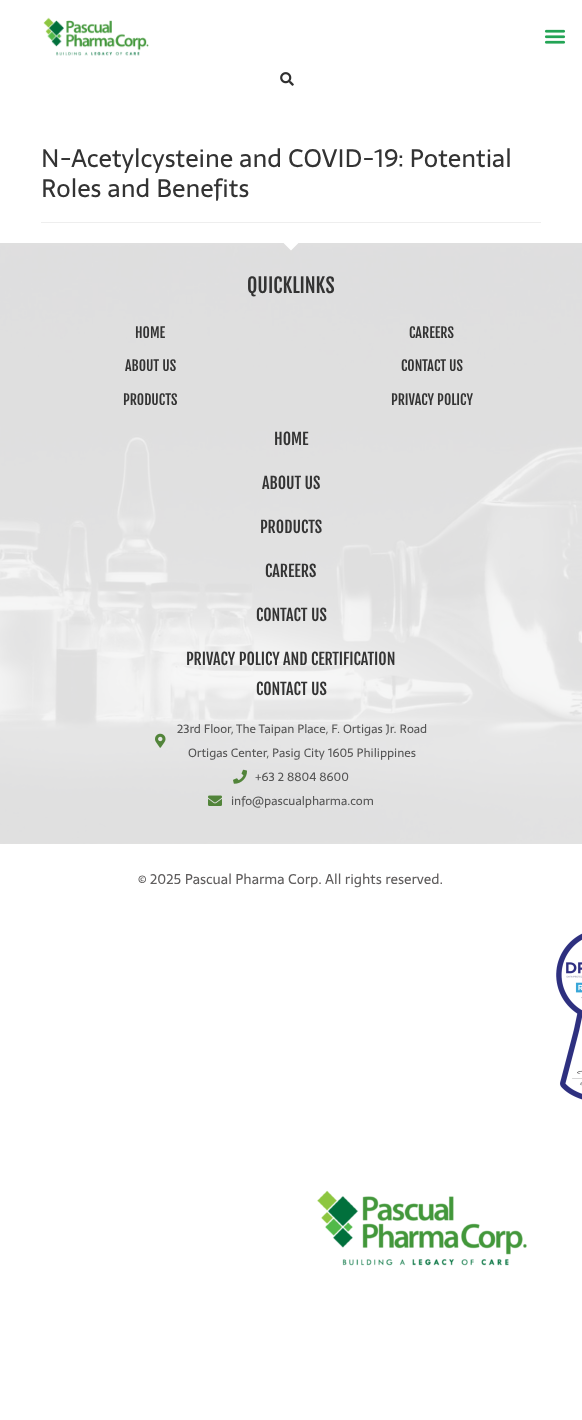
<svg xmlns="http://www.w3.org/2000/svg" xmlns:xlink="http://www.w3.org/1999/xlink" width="582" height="1420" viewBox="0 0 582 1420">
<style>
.cls-1{font:25px Sarala;fill:#333333}
.cls-2{font:20px Fjalla One;fill:#333333}
.cls-3{font:14px Fjalla One;fill:#333333}
.cls-4{font:16px Fjalla One;fill:#333333}
.cls-5{font:12px Sarala;fill:#565656}
.cls-6{font:14px Sarala;fill:#605e5e}
</style>
<rect width="100%" height="100%" fill="#ffffff"/>
<image xlink:href="image0.png" x="43" y="17" width="106" height="39"/>
<image xlink:href="image1.png" x="544" y="29" width="22" height="15"/>
<image xlink:href="image2.png" x="280" y="72" width="14" height="14"/>
<rect fill="#eeeeee" x="41" y="222" width="500" height="1"/>
<image xlink:href="image3.png" x="0" y="243" width="582" height="601"/>
<path fill="#ffffff" d="M291 250.5L282.5 242H299.5Z"/>
<image xlink:href="image4.png" x="155" y="733" width="11" height="15"/>
<image xlink:href="image5.png" x="233" y="769" width="14" height="15"/>
<image xlink:href="image6.png" x="208" y="795" width="14" height="11"/>
<image xlink:href="image7.png" x="556" y="933" width="26" height="167"/>
<image xlink:href="image8.png" x="317" y="1190" width="210" height="76"/>
<text class="cls-1"><tspan x="41" y="167">N-Acetylcysteine and COVID-19: Potential</tspan><tspan x="41" y="197">Roles and Benefits</tspan></text>
<text class="cls-2" x="247" y="293">QUICKLINKS</text>
<text class="cls-3" x="135" y="338">HOME</text>
<text class="cls-3" x="125" y="371">ABOUT US</text>
<text class="cls-3" x="123" y="405">PRODUCTS</text>
<text class="cls-3" x="409" y="338">CAREERS</text>
<text class="cls-3" x="401" y="371">CONTACT US</text>
<text class="cls-3" x="391" y="405">PRIVACY POLICY</text>
<text class="cls-4" x="274" y="445">HOME</text>
<text class="cls-4" x="262" y="489">ABOUT US</text>
<text class="cls-4" x="260" y="533">PRODUCTS</text>
<text class="cls-4" x="265" y="577">CAREERS</text>
<text class="cls-4" x="256" y="621">CONTACT US</text>
<text class="cls-4" x="186" y="665">PRIVACY POLICY AND CERTIFICATION</text>
<text class="cls-4" x="256" y="695">CONTACT US</text>
<text class="cls-5" x="177" y="733">23rd Floor, The Taipan Place, F. Ortigas Jr. Road</text>
<text class="cls-5" x="188" y="757">Ortigas Center, Pasig City 1605 Philippines</text>
<text class="cls-5" x="255" y="781">+63 2 8804 8600</text>
<text class="cls-5" x="231" y="805">info@pascualpharma.com</text>
<text class="cls-6" x="138" y="884">© 2025 Pascual Pharma Corp. All rights reserved.</text>
</svg>
